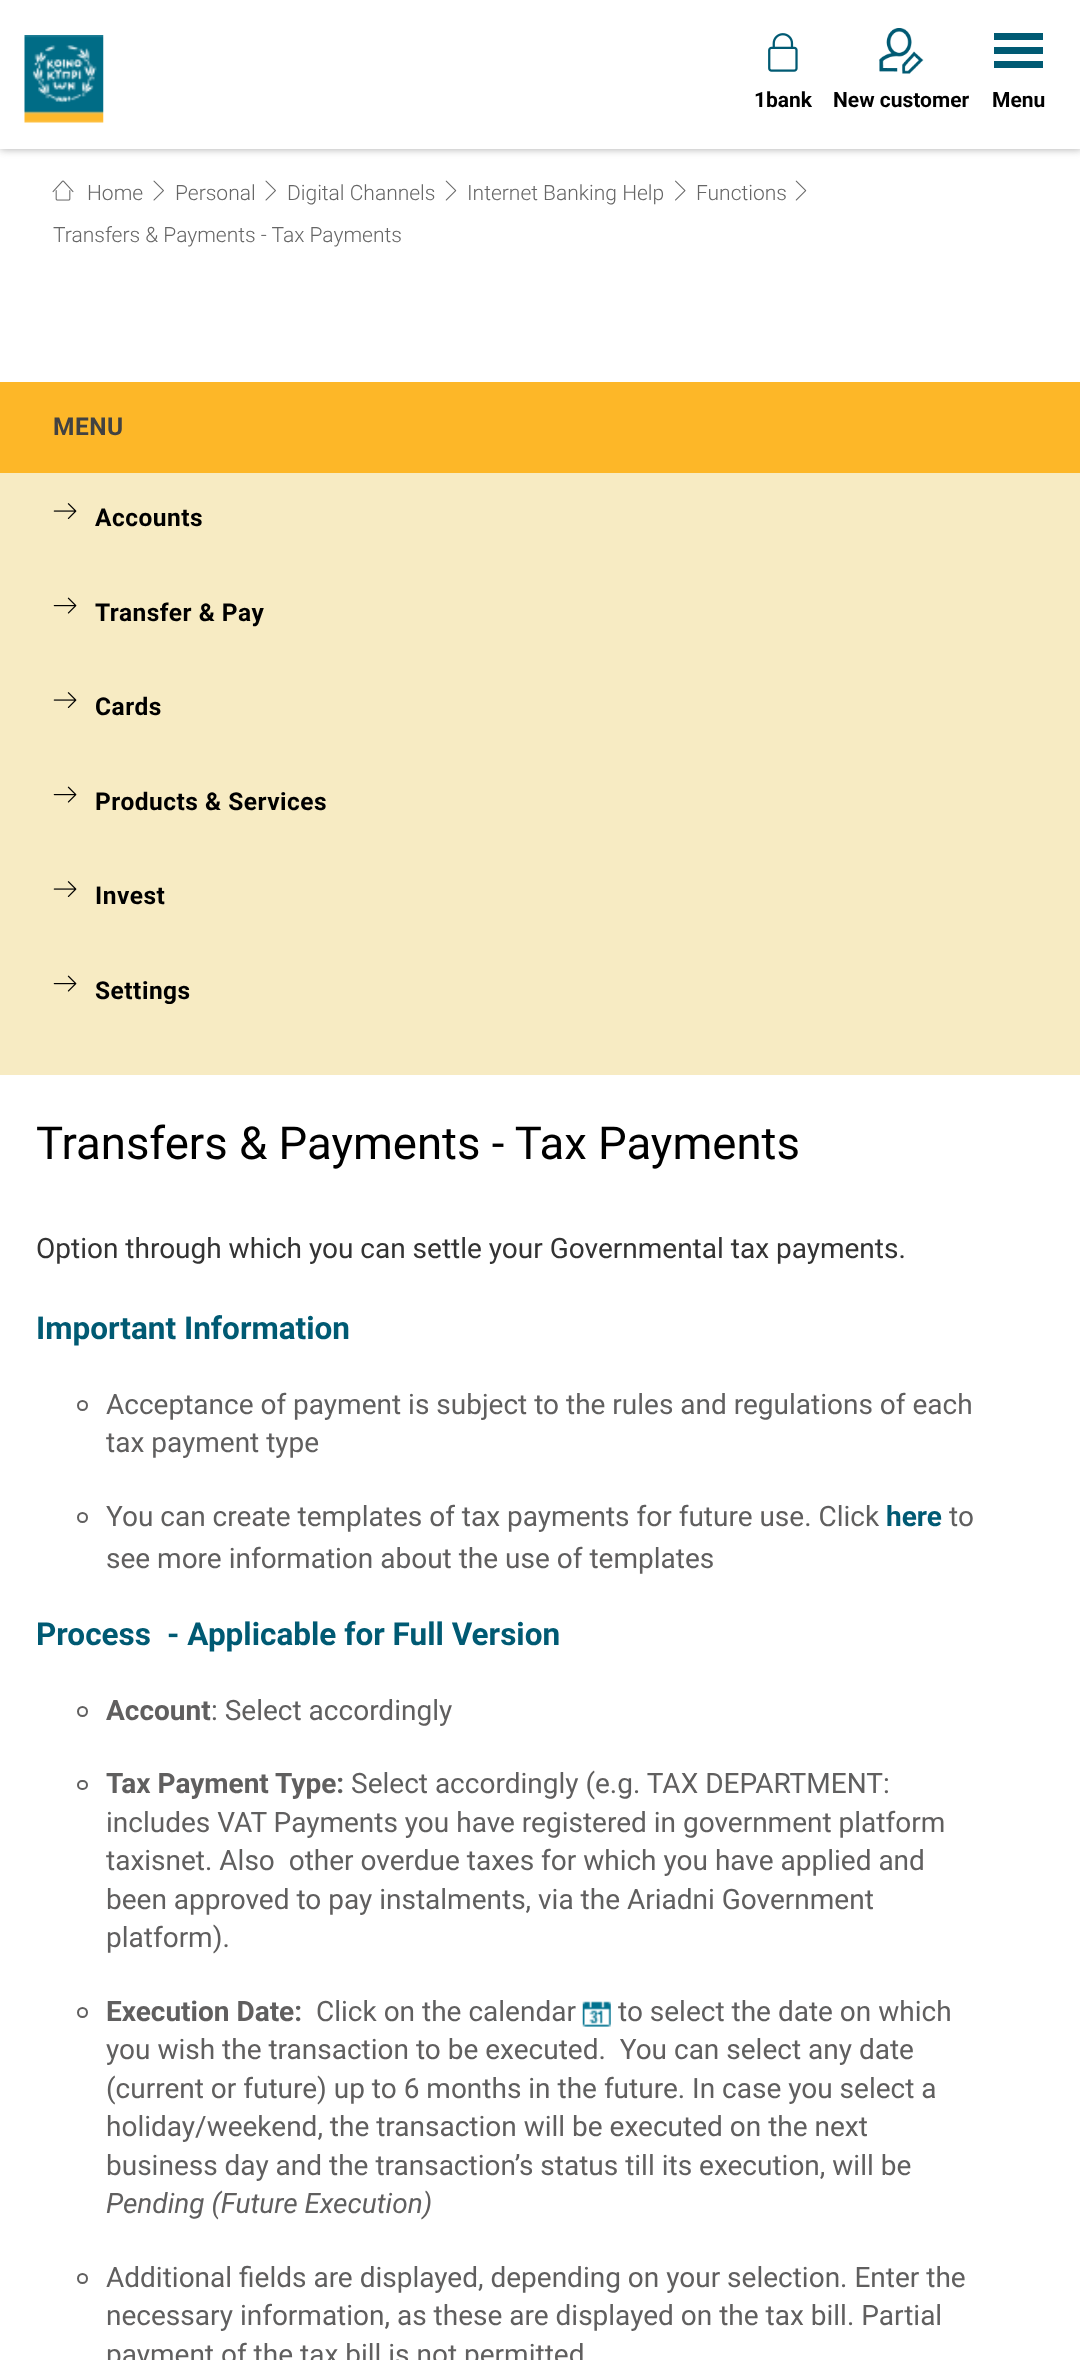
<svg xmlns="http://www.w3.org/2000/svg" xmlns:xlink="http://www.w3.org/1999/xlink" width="1080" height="2360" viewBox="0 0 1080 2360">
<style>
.cls-1{font:bold 21px Roboto;fill:#000000}
.cls-2{font:300 21px Roboto;fill:#666666}
.cls-3{font:bold 24.5px Roboto;letter-spacing:0.5px;fill:#424242}
.cls-4{font:bold 24.5px Roboto;letter-spacing:0.5px;fill:#000000}
.cls-5{font:45.5px Roboto;fill:#000000}
.cls-6{font:28px Roboto;fill:#333333}
.cls-7{font:bold 31.5px Roboto;fill:#005a73}
.cls-8{font:28px Roboto;fill:#605f5f}
.cls-9{font:bold 28px Roboto;fill:#005a73}
.cls-10{font:bold 28px Roboto;fill:#605f5f}
.cls-11{font:italic 28px Roboto;fill:#605f5f}
</style>
<rect width="100%" height="100%" fill="#ffffff"/>
<rect fill="#aaaaaa" filter="blur(4.5px)" x="0" y="0" width="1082" height="149"/>
<rect fill="#ffffff" x="0" y="0" width="1080" height="149"/>
<image xlink:href="image0.png" x="24" y="35" width="80" height="88"/>
<image xlink:href="image1.png" x="768" y="33" width="30" height="39"/>
<image xlink:href="image2.png" x="879" y="28" width="45" height="46"/>
<rect fill="#005a73" x="994" y="33" width="49" height="7"/>
<rect fill="#005a73" x="994" y="47" width="49" height="7"/>
<rect fill="#005a73" x="994" y="61" width="49" height="7"/>
<image xlink:href="image3.png" x="52" y="180" width="22" height="21"/>
<image xlink:href="image4.png" x="153" y="180" width="11" height="21"/>
<image xlink:href="image4.png" x="265" y="180" width="11" height="21"/>
<image xlink:href="image5.png" x="445" y="180" width="12" height="21"/>
<image xlink:href="image6.png" x="675" y="180" width="11" height="21"/>
<image xlink:href="image5.png" x="795" y="180" width="12" height="21"/>
<rect fill="#f7ebc3" x="0" y="473" width="1080" height="602"/>
<rect fill="#fdb728" x="0" y="382" width="1080" height="91"/>
<image xlink:href="image7.png" x="53" y="503" width="24" height="16"/>
<image xlink:href="image8.png" x="53" y="597" width="24" height="17"/>
<image xlink:href="image7.png" x="53" y="692" width="24" height="16"/>
<image xlink:href="image8.png" x="53" y="786" width="24" height="17"/>
<image xlink:href="image7.png" x="53" y="881" width="24" height="16"/>
<image xlink:href="image8.png" x="53" y="975" width="24" height="17"/>
<circle fill="none" stroke="#605f5f" stroke-width="2" cx="82.5" cy="1405.5" r="4.5"/>
<circle fill="none" stroke="#605f5f" stroke-width="2" cx="82.5" cy="1517.5" r="4.5"/>
<circle fill="none" stroke="#605f5f" stroke-width="2" cx="82.5" cy="1711.5" r="4.5"/>
<rect fill="none" stroke="#605f5f" stroke-width="2" x="78" y="1781" width="9" height="8" rx="4"/>
<circle fill="none" stroke="#605f5f" stroke-width="2" cx="82.5" cy="2012.5" r="4.5"/>
<image xlink:href="image9.png" x="582" y="2001" width="29" height="26"/>
<circle fill="none" stroke="#605f5f" stroke-width="2" cx="82.5" cy="2278.5" r="4.5"/>
<text class="cls-1" x="754" y="107">1bank</text>
<text class="cls-1" x="833" y="107">New customer</text>
<text class="cls-1" x="992" y="107">Menu</text>
<text class="cls-2" x="87" y="200">Home</text>
<text class="cls-2" x="175" y="200">Personal</text>
<text class="cls-2" x="287" y="200">Digital Channels</text>
<text class="cls-2" x="467" y="200">Internet Banking Help</text>
<text class="cls-2" x="696" y="200">Functions</text>
<text class="cls-2" x="53" y="242">Transfers &amp; Payments - Tax Payments</text>
<text class="cls-3" x="53" y="435">MENU</text>
<text class="cls-4" x="95" y="526">Accounts</text>
<text class="cls-4" x="95" y="621">Transfer &amp; Pay</text>
<text class="cls-4" x="95" y="715">Cards</text>
<text class="cls-4" x="95" y="810">Products &amp; Services</text>
<text class="cls-4" x="95" y="904">Invest</text>
<text class="cls-4" x="95" y="999">Settings</text>
<text class="cls-5" x="36" y="1159">Transfers &amp; Payments - Tax Payments</text>
<text class="cls-6" x="36" y="1258">Option through which you can settle your Governmental tax payments.</text>
<text class="cls-7" x="36" y="1339">Important Information</text>
<text class="cls-8"><tspan x="106" y="1414">Acceptance of payment is subject to the rules and regulations of each</tspan><tspan x="106" y="1452">tax payment type</tspan></text>
<text class="cls-8" x="106" y="1526">You can create templates of tax payments for future use. Click</text>
<text class="cls-9" x="886" y="1526">here</text>
<text class="cls-8" x="949" y="1526">to</text>
<text class="cls-8" x="106" y="1568">see more information about the use of templates</text>
<text class="cls-7" x="36" y="1645">Process</text>
<text class="cls-7" x="167" y="1645">- Applicable for Full Version</text>
<text class="cls-10" x="106" y="1720">Account</text>
<text class="cls-8" x="211" y="1720">: Select accordingly</text>
<text class="cls-10" x="106" y="1793">Tax Payment Type:</text>
<text class="cls-8" x="351" y="1793">Select accordingly (e.g. TAX DEPARTMENT:</text>
<text class="cls-8" xml:space="preserve"><tspan x="106" y="1832">includes VAT Payments you have registered in government platform</tspan><tspan x="106" y="1870">taxisnet. Also  other overdue taxes for which you have applied and</tspan><tspan x="106" y="1909">been approved to pay instalments, via the Ariadni Government</tspan><tspan x="106" y="1947">platform).</tspan></text>
<text class="cls-10" x="106" y="2021">Execution Date:</text>
<text class="cls-8" x="316" y="2021">Click on the calendar</text>
<text class="cls-8" x="618" y="2021">to select the date on which</text>
<text class="cls-8" xml:space="preserve"><tspan x="106" y="2059">you wish the transaction to be executed.  You can select any date</tspan><tspan x="106" y="2098">(current or future) up to 6 months in the future. In case you select a</tspan><tspan x="106" y="2136">holiday/weekend, the transaction will be executed on the next</tspan><tspan x="106" y="2175">business day and the transaction’s status till its execution, will be</tspan></text>
<text class="cls-11" x="106" y="2213">Pending (Future Execution)</text>
<text class="cls-8"><tspan x="106" y="2287">Additional fields are displayed, depending on your selection. Enter the</tspan><tspan x="106" y="2325">necessary information, as these are displayed on the tax bill. Partial</tspan><tspan x="106" y="2364">payment of the tax bill is not permitted</tspan></text>
</svg>
